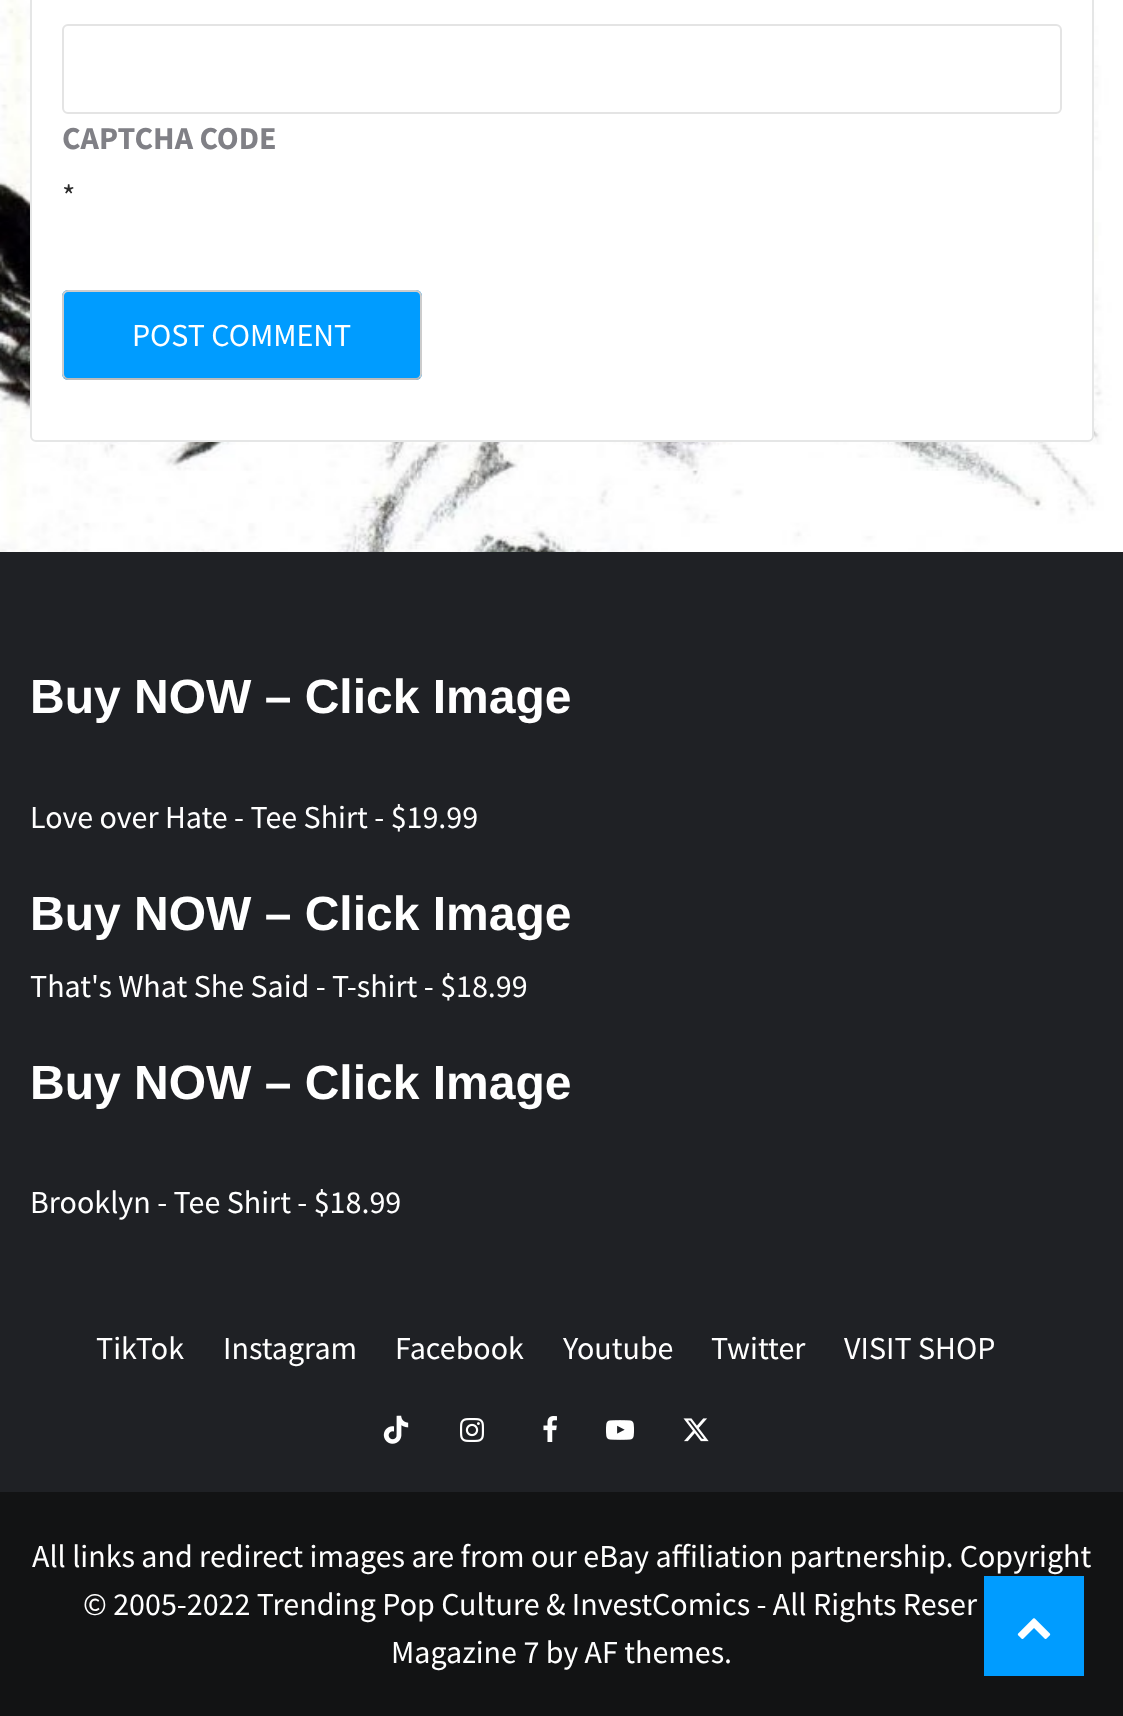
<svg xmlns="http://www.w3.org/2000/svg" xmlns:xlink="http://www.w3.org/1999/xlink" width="1123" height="1716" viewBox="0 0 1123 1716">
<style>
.cls-1{font:bold 32px Source Sans Pro;fill:#808086}
.cls-2{font:32px Source Sans Pro;fill:#2a2a2a}
.cls-3{font:32px Source Sans Pro;fill:#ffffff}
.cls-4{font:bold 48px Liberation Sans;fill:#ffffff}
</style>
<rect width="100%" height="100%" fill="#ffffff"/>
<image xlink:href="image0.png" x="0" y="0" width="1123" height="552"/>
<rect fill="#ffffff" stroke="#e5e6e6" stroke-width="2" x="31" y="-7" width="1062" height="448" rx="5"/>
<rect fill="none" stroke="#e4e4e4" stroke-width="2" x="63" y="25" width="998" height="88" rx="5"/>
<rect fill="#009cff" x="62" y="290" width="360" height="90" rx="6"/>
<path fill="none" stroke="#bbbbbb" stroke-width="2" d="M419.5 377.5C418.5 378.5 417.5 379 416 379H68C66.5 379 65.5 378.5 64.5 377.5"/>
<path fill="none" stroke="#cccccc" stroke-width="2" d="M64.5 377.5C63.5 376.5 63 375.5 63 374V296C63 294.5 63.5 293.5 64.5 292.5C65.5 291.5 66.5 291 68 291H416C417.5 291 418.5 291.5 419.5 292.5C420.5 293.5 421 294.5 421 296V374C421 375.5 420.5 376.5 419.5 377.5"/>
<rect fill="#1f2125" x="0" y="552" width="1123" height="940"/>
<image xlink:href="image1.png" x="383" y="1415" width="26" height="29"/>
<image xlink:href="image2.png" x="460" y="1418" width="24" height="24"/>
<image xlink:href="image3.png" x="543" y="1416" width="14" height="26"/>
<image xlink:href="image4.png" x="606" y="1420" width="28" height="20"/>
<image xlink:href="image5.png" x="683" y="1418" width="26" height="24"/>
<rect fill="#121314" x="0" y="1492" width="1123" height="224"/>
<rect fill="#009cff" x="984" y="1576" width="100" height="100"/>
<image xlink:href="image6.png" x="1017" y="1618" width="34" height="21"/>
<text class="cls-1" x="62" y="149">CAPTCHA CODE</text>
<text class="cls-2" x="62" y="207">*</text>
<text class="cls-3" x="132" y="346">POST COMMENT</text>
<text class="cls-4" x="30" y="713">Buy NOW – Click Image</text>
<text class="cls-3" x="30" y="828">Love over Hate - Tee Shirt - $19.99</text>
<text class="cls-4" x="30" y="930">Buy NOW – Click Image</text>
<text class="cls-3" x="30" y="997">That's What She Said - T-shirt - $18.99</text>
<text class="cls-4" x="30" y="1099">Buy NOW – Click Image</text>
<text class="cls-3" x="30" y="1213">Brooklyn - Tee Shirt - $18.99</text>
<text class="cls-3" x="96" y="1359">TikTok</text>
<text class="cls-3" x="223" y="1359">Instagram</text>
<text class="cls-3" x="395" y="1359">Facebook</text>
<text class="cls-3" x="563" y="1359">Youtube</text>
<text class="cls-3" x="711" y="1359">Twitter</text>
<text class="cls-3" x="844" y="1359">VISIT SHOP</text>
<text class="cls-3" x="32" y="1567">All links and redirect images are from our eBay affiliation partnership. Copyright</text>
<text class="cls-3" x="83" y="1615">© 2005-2022 Trending Pop Culture &amp; InvestComics - All Rights Reser</text>
<text class="cls-3" x="391" y="1663">Magazine 7 by AF themes.</text>
</svg>
